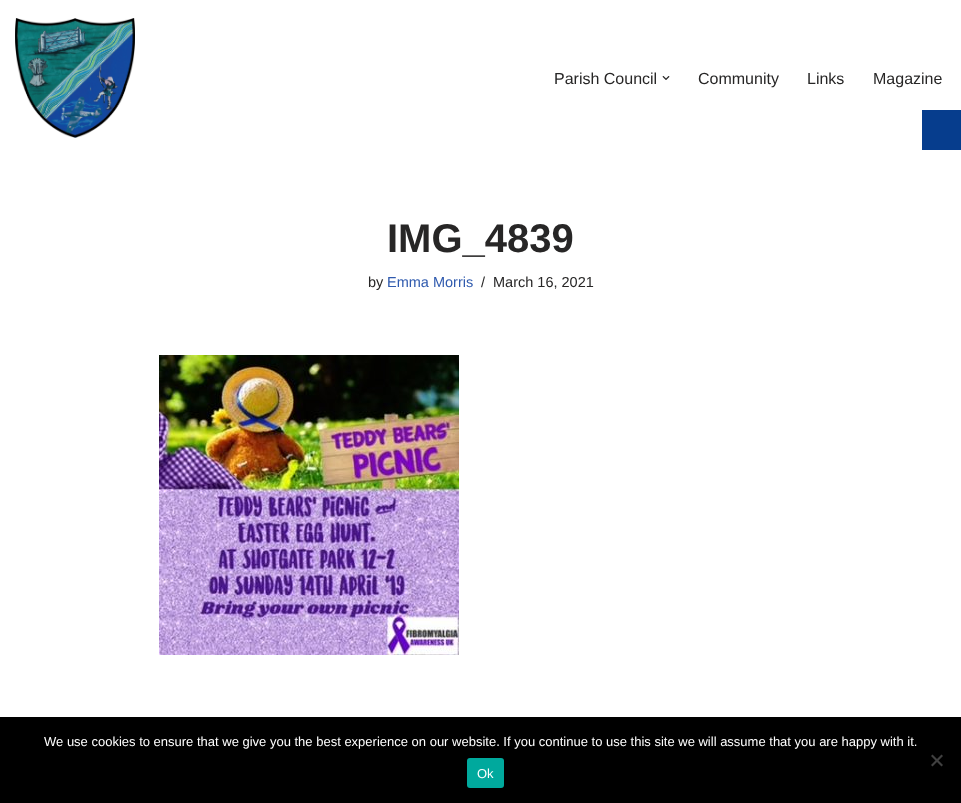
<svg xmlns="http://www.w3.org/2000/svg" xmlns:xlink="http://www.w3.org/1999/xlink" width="961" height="803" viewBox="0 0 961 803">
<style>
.cls-1{font:16px Liberation Sans;fill:#272626}
.cls-2{font:bold 40px Liberation Sans;fill:#272626}
.cls-3{font:14.5px Liberation Sans;fill:#272626}
.cls-4{font:14.5px Liberation Sans;fill:#2f5aae}
.cls-5{font:13px Liberation Sans;fill:#ffffff}
</style>
<rect width="100%" height="100%" fill="#ffffff"/>
<image xlink:href="image0.png" x="15" y="18" width="120" height="120"/>
<image xlink:href="image1.png" x="662" y="76" width="8" height="4"/>
<image xlink:href="image2.png" x="159" y="355" width="300" height="300"/>
<rect fill="#063d8d" x="922" y="110" width="39" height="40"/>
<rect fill="#000000" x="0" y="717" width="961" height="86"/>
<path fill="#404040" d="M941.5 754.5L943 756L932.5 766.5L931 765Z"/>
<path fill="#404040" d="M931 756L932.5 754.5L943 765L941.5 766.5Z"/>
<rect fill="#00a99d" x="467" y="758" width="37" height="30" rx="3"/>
<text class="cls-1" x="554" y="84">Parish Council</text>
<text class="cls-1" x="698" y="84">Community</text>
<text class="cls-1" x="807" y="84">Links</text>
<text class="cls-1" x="873" y="84">Magazine</text>
<text class="cls-2" x="387" y="252">IMG_4839</text>
<text class="cls-3" x="368" y="287">by</text>
<text class="cls-4" x="387" y="287">Emma Morris</text>
<text class="cls-3" x="481" y="287">/</text>
<text class="cls-3" x="493" y="287">March 16, 2021</text>
<text class="cls-5" x="44" y="746">We use cookies to ensure that we give you the best experience on our website. If you continue to use this site we will assume that you are happy with it.</text>
<text class="cls-5" x="477" y="778">Ok</text>
</svg>
